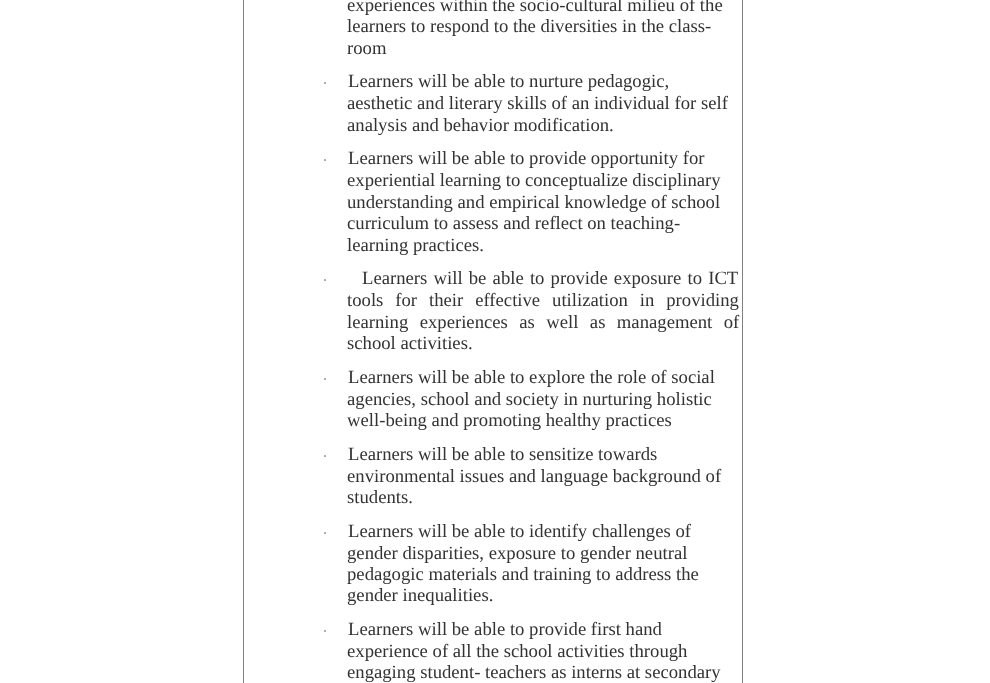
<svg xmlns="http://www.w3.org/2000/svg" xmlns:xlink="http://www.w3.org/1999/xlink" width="990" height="683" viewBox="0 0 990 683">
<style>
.cls-1{font:18.7px Liberation Serif;fill:#333333}
.cls-2{font:12px Liberation Serif;fill:#333333}
</style>
<rect width="100%" height="100%" fill="#ffffff"/>
<rect fill="#808080" x="742" y="0" width="1" height="683"/>
<rect fill="#808080" x="243" y="0" width="1" height="683"/>
<text class="cls-1"><tspan x="347" y="11">experiences within the socio-cultural milieu of the</tspan><tspan x="347" y="32">learners to respond to the diversities in the class-</tspan><tspan x="347" y="54">room</tspan></text>
<text class="cls-2" x="323" y="87">·</text>
<text class="cls-1" x="348" y="87">Learners will be able to nurture pedagogic,</text>
<text class="cls-1"><tspan x="347" y="109">aesthetic and literary skills of an individual for self</tspan><tspan x="347" y="131">analysis and behavior modification.</tspan></text>
<text class="cls-2" x="323" y="164">·</text>
<text class="cls-1" x="348" y="164">Learners will be able to provide opportunity for</text>
<text class="cls-1"><tspan x="347" y="186">experiential learning to conceptualize disciplinary</tspan><tspan x="347" y="208">understanding and empirical knowledge of school</tspan><tspan x="347" y="229">curriculum to assess and reflect on teaching-</tspan><tspan x="347" y="251">learning practices.</tspan></text>
<text class="cls-2" x="323" y="284">·</text>
<text class="cls-1" x="362" y="284" word-spacing="1.5">Learners will be able to provide exposure to ICT</text>
<text class="cls-1"><tspan x="347" y="306" word-spacing="7.25">tools for their effective utilization in providing</tspan><tspan x="347" y="328" word-spacing="6.75">learning experiences as well as management of</tspan><tspan x="347" y="349">school activities.</tspan></text>
<text class="cls-2" x="323" y="383">·</text>
<text class="cls-1" x="348" y="383">Learners will be able to explore the role of social</text>
<text class="cls-1"><tspan x="347" y="405">agencies, school and society in nurturing holistic</tspan><tspan x="347" y="426">well-being and promoting healthy practices</tspan></text>
<text class="cls-2" x="323" y="460">·</text>
<text class="cls-1" x="348" y="460">Learners will be able to sensitize towards</text>
<text class="cls-1"><tspan x="347" y="482">environmental issues and language background of</tspan><tspan x="347" y="503">students.</tspan></text>
<text class="cls-2" x="323" y="537">·</text>
<text class="cls-1" x="348" y="537">Learners will be able to identify challenges of</text>
<text class="cls-1"><tspan x="347" y="559">gender disparities, exposure to gender neutral</tspan><tspan x="347" y="580">pedagogic materials and training to address the</tspan><tspan x="347" y="601">gender inequalities.</tspan></text>
<text class="cls-2" x="323" y="635">·</text>
<text class="cls-1" x="348" y="635">Learners will be able to provide first hand</text>
<text class="cls-1"><tspan x="347" y="657">experience of all the school activities through</tspan><tspan x="347" y="678">engaging student- teachers as interns at secondary</tspan></text>
</svg>
